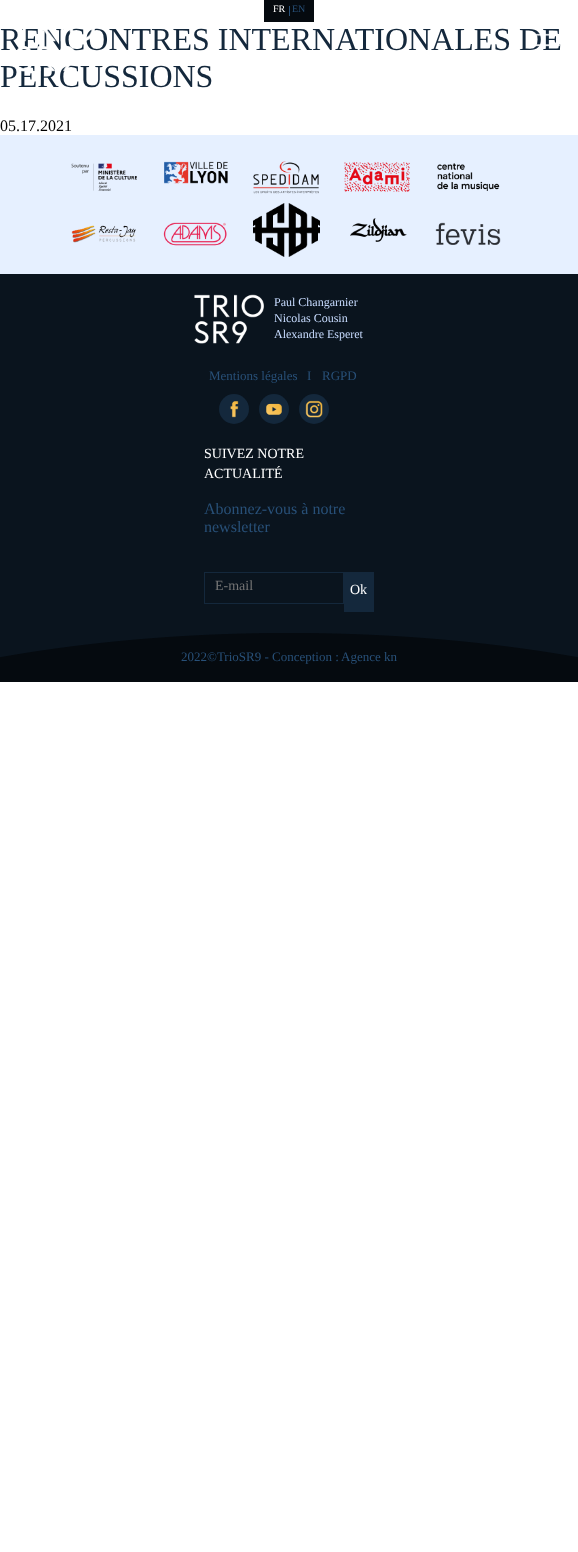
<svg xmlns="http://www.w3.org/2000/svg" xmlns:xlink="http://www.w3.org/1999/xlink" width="578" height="1552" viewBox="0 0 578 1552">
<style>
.cls-1{font:10px Liberation Serif;fill:#ffffff}
.cls-2{font:10px Liberation Serif;fill:#285078}
.cls-3{font:32px Liberation Serif;fill:#14283c}
.cls-4{font:16px Liberation Serif;fill:#000000}
.cls-5{font:12px Liberation Serif;fill:#c8dcff}
.cls-6{font:13px Liberation Serif;fill:#285078}
.cls-7{font:14px Liberation Serif;fill:#ffffff}
.cls-8{font:16px Liberation Serif;fill:#285078}
.cls-9{font:14px Liberation Serif;fill:#757575}
</style>
<rect width="100%" height="100%" fill="#ffffff"/>
<rect fill="#050a0f" x="264" y="0" width="50" height="22"/>
<rect fill="#285078" x="289" y="6" width="1" height="10"/>
<rect fill="#e6f0ff" x="0" y="135" width="578" height="139"/>
<image xlink:href="image2.png" x="71" y="163" width="66" height="28"/>
<image xlink:href="image3.png" x="164" y="161" width="64" height="23"/>
<image xlink:href="image4.png" x="253" y="161" width="66" height="33"/>
<image xlink:href="image5.png" x="344" y="162" width="66" height="30"/>
<image xlink:href="image6.png" x="437" y="163" width="63" height="28"/>
<image xlink:href="image7.png" x="71" y="225" width="65" height="18"/>
<image xlink:href="image8.png" x="163" y="222" width="64" height="24"/>
<image xlink:href="image9.png" x="253" y="203" width="67" height="54"/>
<image xlink:href="image10.png" x="350" y="218" width="57" height="24"/>
<image xlink:href="image11.png" x="435" y="222" width="66" height="23"/>
<rect fill="#0a141e" x="0" y="274" width="578" height="384"/>
<image xlink:href="image12.png" x="194" y="294" width="70" height="50"/>
<circle fill="#14283c" cx="234" cy="409" r="15"/>
<image xlink:href="image13.png" x="230" y="401" width="9" height="17"/>
<circle fill="#14283c" cx="274" cy="409" r="15"/>
<image xlink:href="image14.png" x="266" y="403" width="16" height="12"/>
<circle fill="#14283c" cx="314" cy="409" r="15"/>
<image xlink:href="image15.png" x="305" y="400" width="18" height="18"/>
<rect fill="none" stroke="#14283c" x="204.5" y="572.5" width="139" height="31"/>
<rect fill="#14283c" x="344" y="572" width="30" height="40"/>
<image xlink:href="image16.png" x="0" y="633" width="578" height="49"/>
<text class="cls-1" x="273" y="12">FR</text>
<text class="cls-2" x="292" y="12">EN</text>
<text class="cls-3" x="0" y="50">RENCONTRES INTERNATIONALES DE</text>
<image xlink:href="image1.png" x="535" y="33" width="25" height="14"/>
<text class="cls-3" x="0" y="87">PERCUSSIONS</text>
<image xlink:href="image0.png" x="16" y="28" width="79" height="44"/>
<text class="cls-4" x="0" y="131">05.17.2021</text>
<text class="cls-5"><tspan x="274" y="306">Paul Changarnier</tspan><tspan x="274" y="322">Nicolas Cousin</tspan><tspan x="274" y="338">Alexandre Esperet</tspan></text>
<text class="cls-6" x="209" y="380">Mentions légales</text>
<text class="cls-6" x="307" y="380">I</text>
<text class="cls-6" x="322" y="380">RGPD</text>
<text class="cls-7"><tspan x="204" y="458">SUIVEZ NOTRE</tspan><tspan x="204" y="478">ACTUALITÉ</tspan></text>
<text class="cls-8"><tspan x="204" y="514">Abonnez-vous à notre</tspan><tspan x="204" y="532">newsletter</tspan></text>
<text class="cls-9" x="215" y="590">E-mail</text>
<text class="cls-7" x="350" y="594">Ok</text>
<text class="cls-6" x="181" y="661">2022©TrioSR9 - Conception :</text>
<text class="cls-6" x="341" y="661">Agence kn</text>
</svg>
